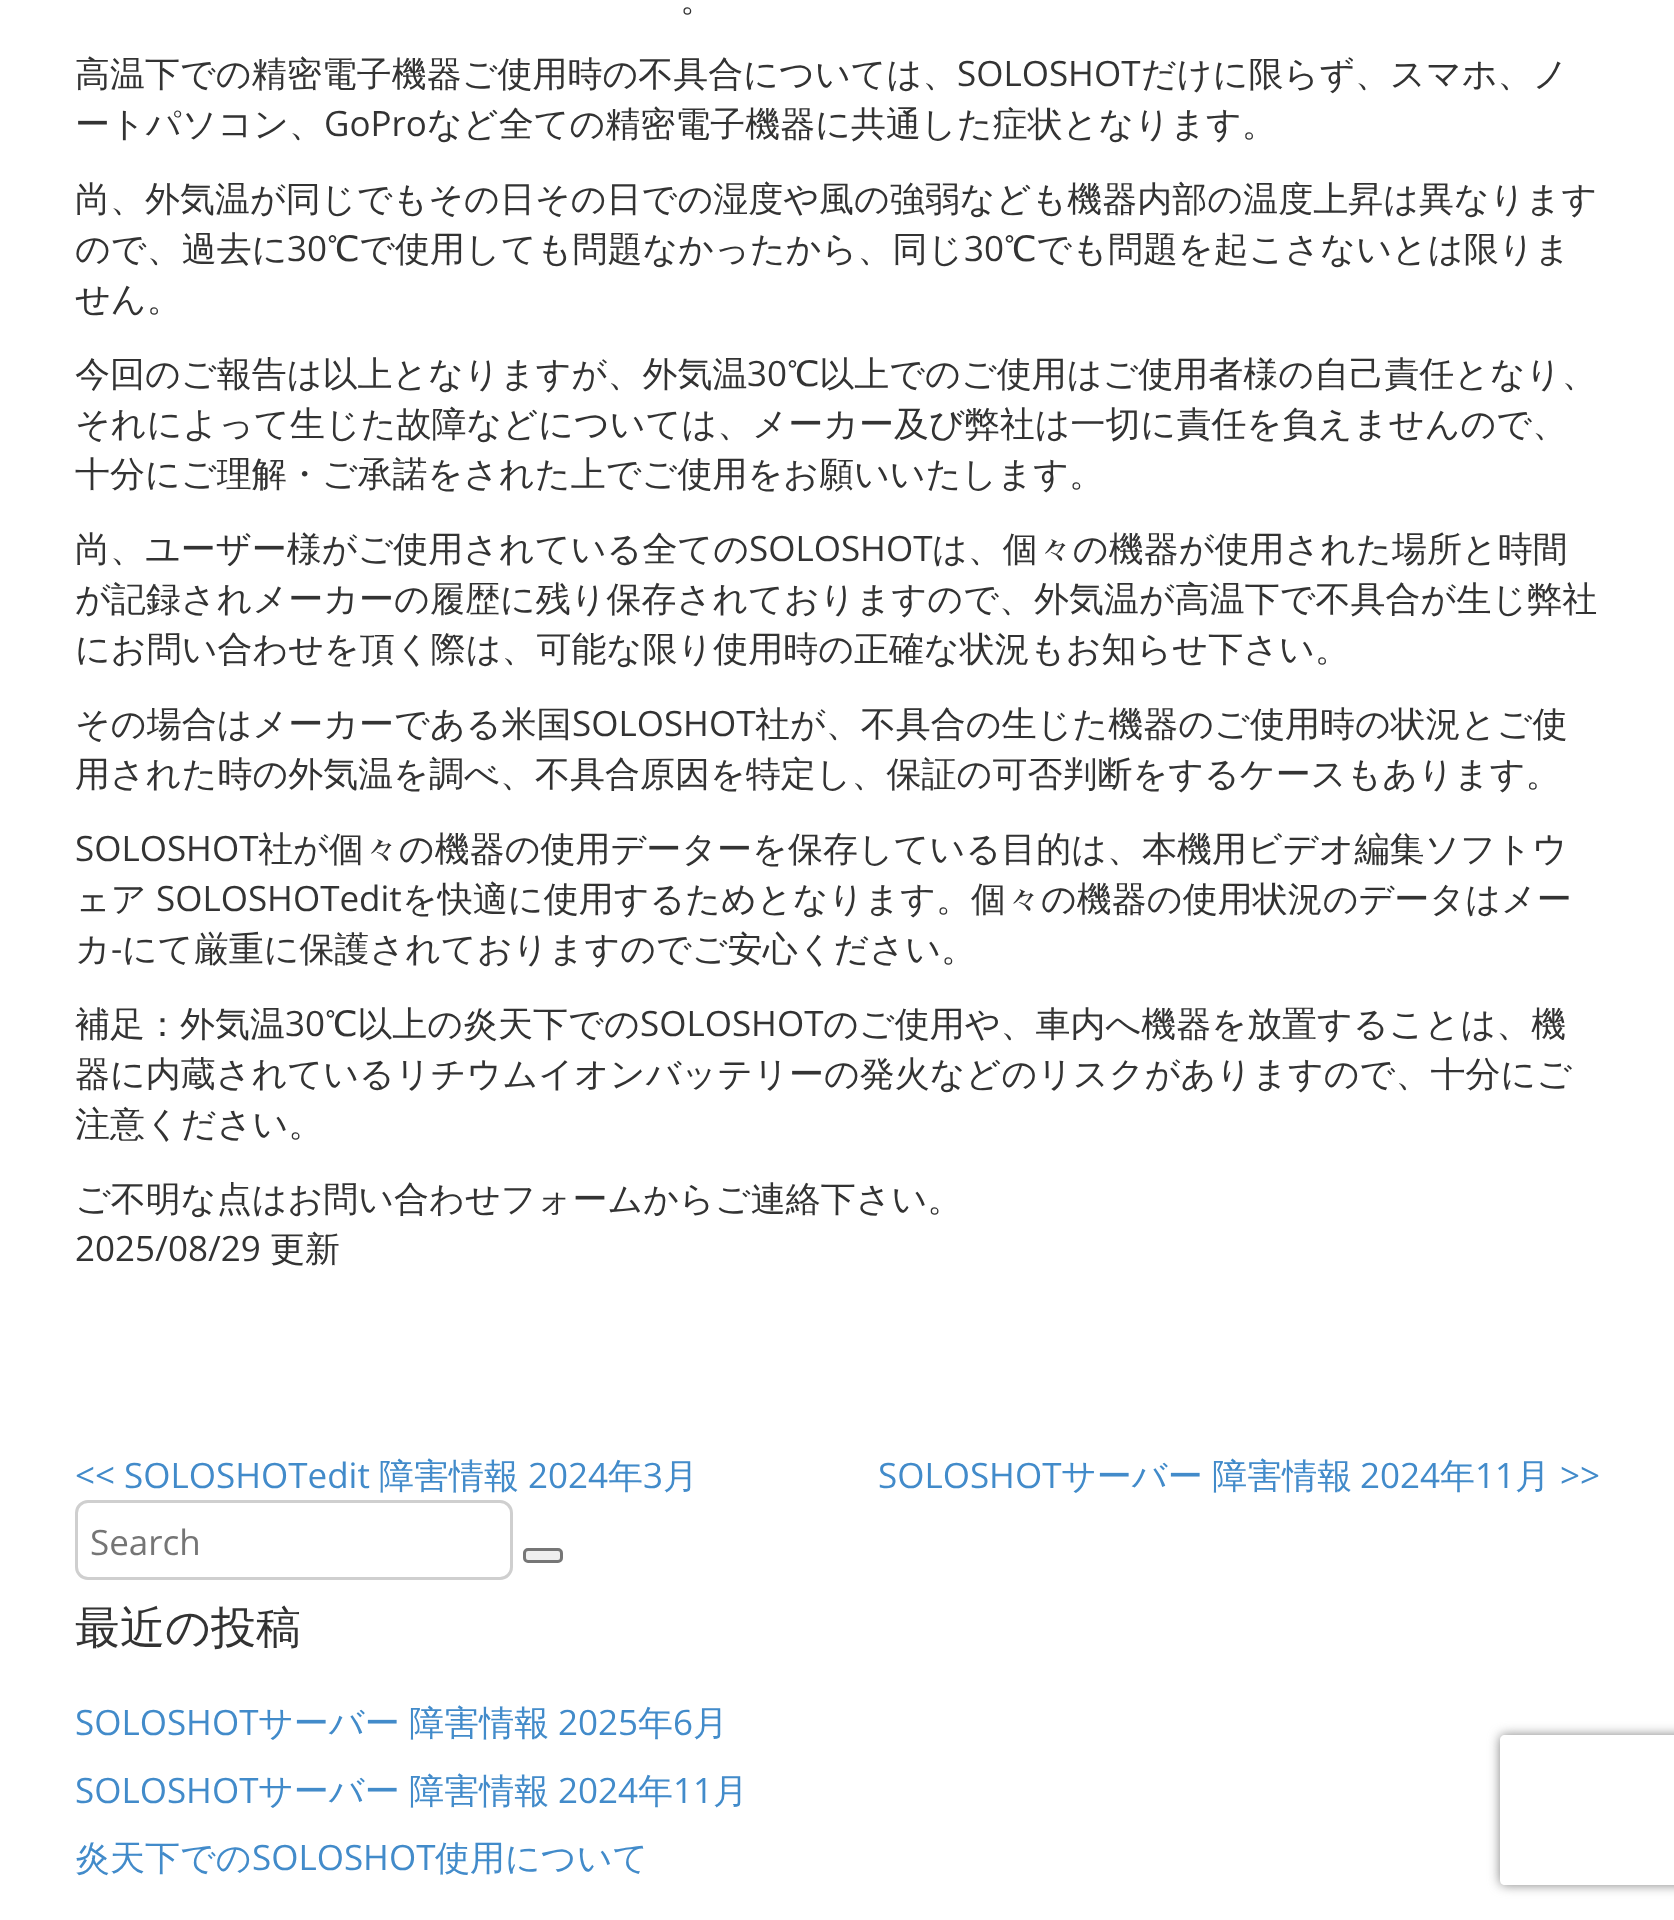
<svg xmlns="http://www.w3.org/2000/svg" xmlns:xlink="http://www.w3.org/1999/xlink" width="1674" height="1920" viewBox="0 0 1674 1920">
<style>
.cls-1{font:500 35px WenQuanYi Zen Hei;fill:#333333}
.cls-2{font:35px Open Sans;fill:#333333}
.cls-3{font:35px Open Sans;fill:#428bca}
.cls-4{font:500 35px WenQuanYi Zen Hei;fill:#428bca}
.cls-5{font:35px Open Sans;fill:#757575}
.cls-6{font:500 45px WenQuanYi Zen Hei;fill:#333333}
</style>
<defs>
<clipPath id="clip1"><path d="M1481 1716H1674V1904H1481ZM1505 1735H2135C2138 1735 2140 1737 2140 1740V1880C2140 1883 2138 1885 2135 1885H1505C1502 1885 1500 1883 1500 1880V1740C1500 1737 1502 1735 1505 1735Z" clip-rule="evenodd"/></clipPath>
</defs>
<rect width="100%" height="100%" fill="#ffffff"/>
<rect fill="none" stroke="#cfcfcf" stroke-width="3" x="76.5" y="1501.5" width="435" height="77" rx="11.5"/>
<rect fill="#efefef" stroke="#767676" stroke-width="3" x="524.5" y="1549.5" width="37" height="12" rx="3.5"/>
<g clip-path="url(#clip1)">
<rect fill="#808080" filter="blur(6px)" x="1500" y="1735" width="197" height="150" rx="5"/>
</g>
<text class="cls-1" x="680" y="11">。</text>
<text class="cls-1" x="75" y="86">高温下での精密電子機器ご使用時の不具合については、</text>
<text class="cls-2" x="957" y="86">SOLOSHOT</text>
<text class="cls-1" x="1141" y="86">だけに限らず、スマホ、ノ</text>
<text class="cls-1" x="75" y="136">ートパソコン、</text>
<text class="cls-2" x="324" y="136">GoPro</text>
<text class="cls-1" x="427" y="136">など全ての精密電子機器に共通した症状となります。</text>
<text class="cls-1"><tspan x="75" y="211">尚、外気温が同じでもその日その日での湿度や風の強弱なども機器内部の温度上昇は異なります</tspan><tspan x="75" y="261">ので、過去に</tspan></text>
<text class="cls-2" x="287" y="261">30</text>
<text class="cls-1" x="327" y="261">℃で使用しても問題なかったから、同じ</text>
<text class="cls-2" x="964" y="261">30</text>
<text class="cls-1" x="1004" y="261">℃でも問題を起こさないとは限りま</text>
<text class="cls-1" x="75" y="311">せん。</text>
<text class="cls-1" x="75" y="386">今回のご報告は以上となりますが、外気温</text>
<text class="cls-2" x="747" y="386">30</text>
<text class="cls-1" x="787" y="386">℃以上でのご使用はご使用者様の自己責任となり、</text>
<text class="cls-1"><tspan x="75" y="436">それによって生じた故障などについては、メーカー及び弊社は一切に責任を負えませんので、</tspan><tspan x="75" y="486">十分にご理解・ご承諾をされた上でご使用をお願いいたします。</tspan></text>
<text class="cls-1" x="75" y="561">尚、ユーザー様がご使用されている全ての</text>
<text class="cls-2" x="749" y="561">SOLOSHOT</text>
<text class="cls-1" x="932" y="561">は、個々の機器が使用された場所と時間</text>
<text class="cls-1"><tspan x="75" y="611">が記録されメーカーの履歴に残り保存されておりますので、外気温が高温下で不具合が生じ弊社</tspan><tspan x="75" y="661">にお問い合わせを頂く際は、可能な限り使用時の正確な状況もお知らせ下さい。</tspan></text>
<text class="cls-1" x="75" y="736">その場合はメーカーである米国</text>
<text class="cls-2" x="572" y="736">SOLOSHOT</text>
<text class="cls-1" x="755" y="736">社が、不具合の生じた機器のご使用時の状況とご使</text>
<text class="cls-1" x="75" y="786">用された時の外気温を調べ、不具合原因を特定し、保証の可否判断をするケースもあります。</text>
<text class="cls-2" x="75" y="861">SOLOSHOT</text>
<text class="cls-1" x="258" y="861">社が個々の機器の使用データーを保存している目的は、本機用ビデオ編集ソフトウ</text>
<text class="cls-1" x="75" y="911">ェア</text>
<text class="cls-2" x="156" y="911">SOLOSHOTedit</text>
<text class="cls-1" x="402" y="911">を快適に使用するためとなります。個々の機器の使用状況のデータはメー</text>
<text class="cls-1" x="75" y="961">カ</text>
<text class="cls-2" x="111" y="961">-</text>
<text class="cls-1" x="122" y="961">にて厳重に保護されておりますのでご安心ください。</text>
<text class="cls-1" x="75" y="1036">補足：外気温</text>
<text class="cls-2" x="285" y="1036">30</text>
<text class="cls-1" x="325" y="1036">℃以上の炎天下での</text>
<text class="cls-2" x="640" y="1036">SOLOSHOT</text>
<text class="cls-1" x="823" y="1036">のご使用や、車内へ機器を放置することは、機</text>
<text class="cls-1"><tspan x="75" y="1086">器に内蔵されているリチウムイオンバッテリーの発火などのリスクがありますので、十分にご</tspan><tspan x="75" y="1136">注意ください。</tspan></text>
<text class="cls-1" x="75" y="1211">ご不明な点はお問い合わせフォームからご連絡下さい。</text>
<text class="cls-2" x="75" y="1261">2025/08/29</text>
<text class="cls-1" x="270" y="1261">更新</text>
<text class="cls-3" x="75" y="1488">&lt;&lt; SOLOSHOTedit</text>
<text class="cls-4" x="379" y="1488">障害情報</text>
<text class="cls-3" x="528" y="1488">2024</text>
<text class="cls-4" x="608" y="1488">年</text>
<text class="cls-3" x="643" y="1488">3</text>
<text class="cls-4" x="663" y="1488">月</text>
<text class="cls-3" x="878" y="1488">SOLOSHOT</text>
<text class="cls-4" x="1061" y="1488" word-spacing="-1">サーバー 障害情報</text>
<text class="cls-3" x="1360" y="1488">2024</text>
<text class="cls-4" x="1440" y="1488">年</text>
<text class="cls-3" x="1475" y="1488">11</text>
<text class="cls-4" x="1515" y="1488">月</text>
<text class="cls-3" x="1560" y="1488">&gt;&gt;</text>
<text class="cls-5" x="90" y="1555">Search</text>
<text class="cls-6" x="75" y="1643">最近の投稿</text>
<text class="cls-3" x="75" y="1735">SOLOSHOT</text>
<text class="cls-4" x="258" y="1735" word-spacing="-1">サーバー 障害情報</text>
<text class="cls-3" x="558" y="1735">2025</text>
<text class="cls-4" x="638" y="1735">年</text>
<text class="cls-3" x="673" y="1735">6</text>
<text class="cls-4" x="693" y="1735">月</text>
<text class="cls-3" x="75" y="1803">SOLOSHOT</text>
<text class="cls-4" x="258" y="1803" word-spacing="-1">サーバー 障害情報</text>
<text class="cls-3" x="558" y="1803">2024</text>
<text class="cls-4" x="638" y="1803">年</text>
<text class="cls-3" x="673" y="1803">11</text>
<text class="cls-4" x="713" y="1803">月</text>
<text class="cls-4" x="75" y="1870">炎天下での</text>
<text class="cls-3" x="252" y="1870">SOLOSHOT</text>
<text class="cls-4" x="435" y="1870">使用について</text>
</svg>
